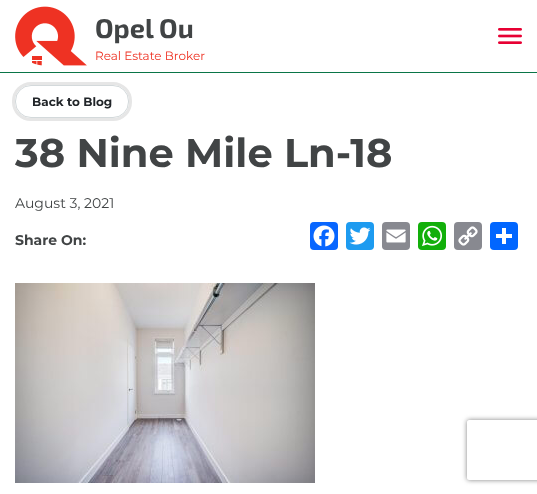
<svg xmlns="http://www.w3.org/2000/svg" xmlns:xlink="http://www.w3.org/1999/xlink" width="537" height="494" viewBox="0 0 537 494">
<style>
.cls-1{font:bold 27px 'Exo 2';fill:#414445}
.cls-2{font:12px Montserrat;fill:#ee3223}
.cls-3{font:bold 12px Montserrat;fill:#212529}
.cls-4{font:bold 40px Montserrat;fill:#414445}
.cls-5{font:14px Montserrat;fill:#414445}
.cls-6{font:bold 14px Montserrat;fill:#414445}
</style>
<defs>
<clipPath id="clip1"><path d="M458 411H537V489H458ZM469 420H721C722 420 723 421 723 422V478C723 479 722 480 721 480H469C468 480 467 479 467 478V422C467 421 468 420 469 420Z" clip-rule="evenodd"/></clipPath>
</defs>
<rect width="100%" height="100%" fill="#ffffff"/>
<rect fill="#0a7547" x="0" y="72" width="537" height="1"/>
<image xlink:href="image0.png" x="15" y="6" width="72" height="60"/>
<image xlink:href="image1.png" x="498" y="28" width="24" height="16"/>
<rect fill="none" stroke="#e6e6e6" stroke-width="3" x="13.5" y="83.5" width="117" height="36" rx="17.5"/>
<rect fill="none" stroke="#d3d9db" x="15.5" y="85.5" width="113" height="32" rx="15.5"/>
<rect fill="#0866ff" x="310" y="222" width="28" height="28" rx="4"/>
<image xlink:href="image2.png" x="313" y="225" width="22" height="22"/>
<rect fill="#1d9bf0" x="346" y="222" width="28" height="28" rx="4"/>
<image xlink:href="image3.png" x="349" y="227" width="22" height="18"/>
<rect fill="#888990" x="382" y="222" width="28" height="28" rx="4"/>
<image xlink:href="image4.png" x="386" y="229" width="20" height="14"/>
<rect fill="#12af0a" x="418" y="222" width="28" height="28" rx="4"/>
<image xlink:href="image5.png" x="422" y="225" width="21" height="22"/>
<rect fill="#888990" x="454" y="222" width="28" height="28" rx="4"/>
<image xlink:href="image6.png" x="458" y="226" width="20" height="20"/>
<rect fill="#0166ff" x="490" y="222" width="28" height="28" rx="4"/>
<rect fill="#ffffff" x="502" y="228" width="4" height="16"/>
<rect fill="#ffffff" x="496" y="234" width="16" height="4"/>
<image xlink:href="image7.png" x="15" y="283" width="300" height="200"/>
<g clip-path="url(#clip1)">
<rect fill="#808080" filter="blur(2.5px)" x="467" y="420" width="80" height="60" rx="2"/>
</g>
<text class="cls-1" x="95" y="38">Opel Ou</text>
<text class="cls-2" x="95" y="60">Real Estate Broker</text>
<text class="cls-3" x="32" y="106">Back to Blog</text>
<text class="cls-4" x="15" y="167">38 Nine Mile Ln-18</text>
<text class="cls-5" x="15" y="208">August 3, 2021</text>
<text class="cls-6" x="15" y="245">Share On:</text>
</svg>
